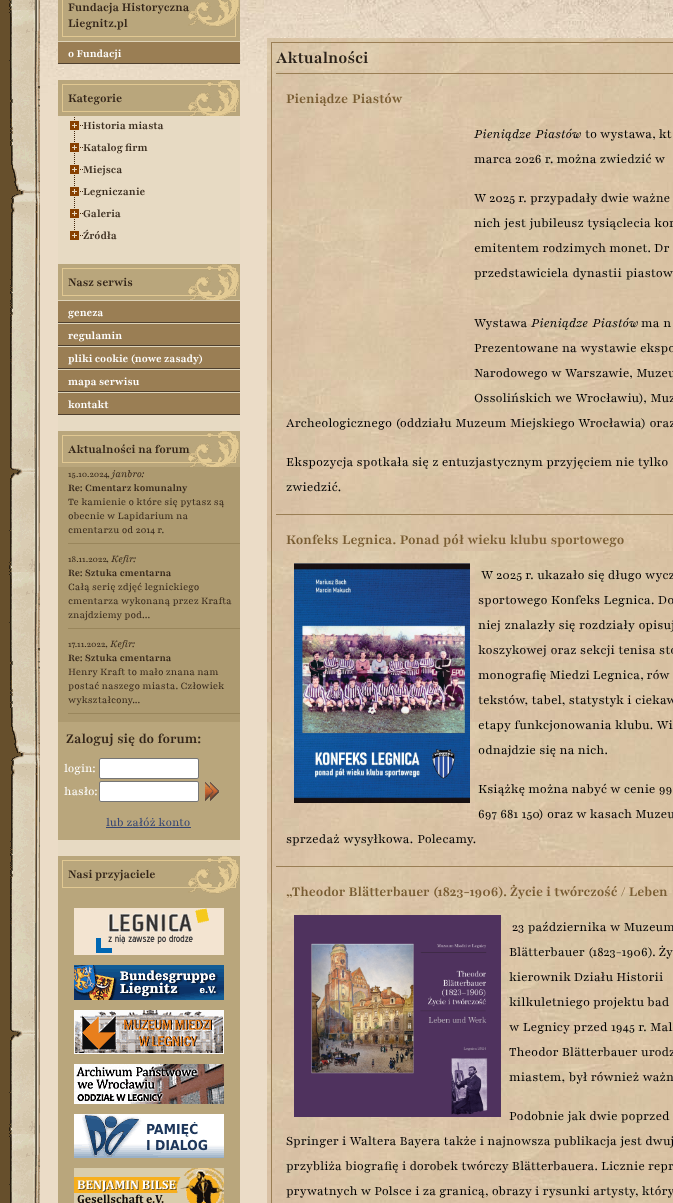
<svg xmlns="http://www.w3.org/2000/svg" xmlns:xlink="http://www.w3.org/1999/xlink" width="673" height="1203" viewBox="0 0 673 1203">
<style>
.cls-1{font:bold 13px Playfair;fill:#332519}
.cls-2{font:bold 12px 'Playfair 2';fill:#ffffff}
.cls-3{font:bold 12px 'Playfair 2';fill:#3b2d1f}
.cls-4{font:10px Playfair;fill:#332519}
.cls-5{font:11px 'Playfair 2';fill:#332519}
.cls-6{font:italic 11px Playfair;fill:#332519}
.cls-7{font:bold 11px 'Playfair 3';fill:#332519}
.cls-8{font:bold 15px 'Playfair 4';fill:#332519}
.cls-9{font:13px 'Playfair 3';fill:#ffffff}
.cls-10{font:13px 'Playfair 3';fill:#334474}
.cls-11{font:bold 18px 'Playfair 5';fill:#2a2119}
.cls-12{font:bold 15px 'Playfair 4';fill:#785c32}
.cls-13{font:italic 14px 'Playfair 2';fill:#000000}
.cls-14{font:14px 'Playfair 4';fill:#000000}
</style>
<rect width="100%" height="100%" fill="#664f2c"/>
<image xlink:href="image0.png" x="9" y="0" width="31" height="1203"/>
<rect fill="#ebdcc7" x="40" y="93" width="227" height="1110"/>
<image xlink:href="image1.png" x="40" y="0" width="633" height="93"/>
<rect fill="#b9a67c" x="58" y="0" width="182" height="41"/>
<image xlink:href="image2.png" x="188" y="0" width="52" height="27"/>
<rect fill="none" stroke="#e1c892" x="62.5" y="-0.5" width="173" height="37"/>
<rect fill="#9a7e54" x="58" y="42" width="182" height="21"/>
<rect fill="#dfd4b9" x="58" y="41" width="182" height="1"/>
<rect fill="#4f402f" x="58" y="63" width="182" height="1"/>
<rect fill="#b9a67c" x="58" y="80" width="182" height="36"/>
<image xlink:href="image3.png" x="188" y="80" width="52" height="36"/>
<rect fill="none" stroke="#e1c892" x="62.5" y="84.5" width="173" height="27"/>
<rect fill="#e7dac3" x="58" y="116" width="182" height="740"/>
<image xlink:href="image4.png" x="70" y="117" width="13" height="21"/>
<image xlink:href="image4.png" x="70" y="139" width="13" height="21"/>
<image xlink:href="image4.png" x="70" y="161" width="13" height="21"/>
<image xlink:href="image4.png" x="70" y="183" width="13" height="21"/>
<image xlink:href="image4.png" x="70" y="205" width="13" height="21"/>
<image xlink:href="image5.png" x="70" y="227" width="13" height="13"/>
<rect fill="#b9a67c" x="58" y="264" width="182" height="36"/>
<image xlink:href="image3.png" x="188" y="264" width="52" height="36"/>
<rect fill="none" stroke="#e1c892" x="62.5" y="268.5" width="173" height="27"/>
<rect fill="#9a7e54" x="58" y="301" width="182" height="21"/>
<rect fill="#dfd4b9" x="58" y="300" width="182" height="1"/>
<rect fill="#4f402f" x="58" y="322" width="182" height="1"/>
<rect fill="#9a7e54" x="58" y="324" width="182" height="21"/>
<rect fill="#dfd4b9" x="58" y="323" width="182" height="1"/>
<rect fill="#4f402f" x="58" y="345" width="182" height="1"/>
<rect fill="#9a7e54" x="58" y="347" width="182" height="21"/>
<rect fill="#dfd4b9" x="58" y="346" width="182" height="1"/>
<rect fill="#4f402f" x="58" y="368" width="182" height="1"/>
<rect fill="#9a7e54" x="58" y="370" width="182" height="21"/>
<rect fill="#dfd4b9" x="58" y="369" width="182" height="1"/>
<rect fill="#4f402f" x="58" y="391" width="182" height="1"/>
<rect fill="#9a7e54" x="58" y="393" width="182" height="21"/>
<rect fill="#dfd4b9" x="58" y="392" width="182" height="1"/>
<rect fill="#4f402f" x="58" y="414" width="182" height="1"/>
<rect fill="#b9a67c" x="58" y="431" width="182" height="36"/>
<image xlink:href="image3.png" x="188" y="431" width="52" height="36"/>
<rect fill="none" stroke="#e1c892" x="62.5" y="435.5" width="173" height="27"/>
<rect fill="#ad9a70" x="58" y="467" width="182" height="255"/>
<rect fill="#99865c" x="68" y="543" width="172" height="1"/>
<rect fill="#99865c" x="68" y="628" width="172" height="1"/>
<rect fill="#99865c" x="68" y="713" width="172" height="1"/>
<rect fill="#b9a67c" x="58" y="722" width="182" height="118"/>
<rect fill="#ffffff" stroke="#767676" x="99.5" y="758.5" width="99" height="20" rx="1.5"/>
<rect fill="#ffffff" stroke="#767676" x="99.5" y="781.5" width="99" height="20" rx="1.5"/>
<image xlink:href="image6.png" x="205" y="782" width="14" height="19"/>
<rect fill="#334474" x="106" y="827" width="85" height="1"/>
<rect fill="#b9a67c" x="58" y="856" width="182" height="347"/>
<image xlink:href="image7.png" x="188" y="856" width="52" height="38"/>
<rect fill="none" stroke="#e1c892" x="62.5" y="860.5" width="173" height="27"/>
<image xlink:href="image8.png" x="74" y="908" width="150" height="47"/>
<image xlink:href="image9.png" x="74" y="965" width="150" height="35"/>
<image xlink:href="image10.png" x="74" y="1010" width="150" height="44"/>
<image xlink:href="image11.png" x="74" y="1064" width="150" height="40"/>
<image xlink:href="image12.png" x="74" y="1114" width="150" height="44"/>
<image xlink:href="image13.png" x="74" y="1168" width="150" height="35"/>
<image xlink:href="image14.png" x="267" y="38" width="406" height="1165"/>
<rect fill="none" stroke="#9a7e54" x="271.5" y="42.5" width="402" height="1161"/>
<rect fill="#9a7e54" x="276" y="73" width="397" height="1"/>
<rect fill="#9a7e54" x="276" y="514" width="397" height="1"/>
<image xlink:href="image15.png" x="294" y="563" width="176" height="240"/>
<rect fill="#9a7e54" x="276" y="866" width="397" height="1"/>
<image xlink:href="image16.png" x="294" y="915" width="207" height="202"/>
<text class="cls-1"><tspan x="68" y="11">Fundacja Historyczna</tspan><tspan x="68" y="27">Liegnitz.pl</tspan></text>
<text class="cls-2" x="68" y="57">o Fundacji</text>
<text class="cls-1" x="68" y="102">Kategorie</text>
<text class="cls-3"><tspan x="83" y="129">Historia miasta</tspan><tspan x="83" y="151">Katalog firm</tspan><tspan x="83" y="173">Miejsca</tspan><tspan x="83" y="195">Legniczanie</tspan><tspan x="83" y="217">Galeria</tspan><tspan x="83" y="239">Źródła</tspan></text>
<text class="cls-1" x="68" y="286">Nasz serwis</text>
<text class="cls-2"><tspan x="68" y="316">geneza</tspan><tspan x="68" y="339">regulamin</tspan><tspan x="68" y="362">pliki cookie (nowe zasady)</tspan><tspan x="68" y="385">mapa serwisu</tspan><tspan x="68" y="408">kontakt</tspan></text>
<text class="cls-1" x="68" y="453">Aktualności na forum</text>
<text class="cls-4" x="68" y="477">15.10.2024</text>
<text class="cls-5" x="107" y="477">,</text>
<text class="cls-6" x="112" y="477">janbro:</text>
<text class="cls-7" x="68" y="491">Re: Cmentarz komunalny</text>
<text class="cls-5"><tspan x="68" y="505">Te kamienie o które się pytasz są</tspan><tspan x="68" y="519">obecnie w Lapidarium na</tspan><tspan x="68" y="533">cmentarzu od 2014 r.</tspan></text>
<text class="cls-4" x="68" y="562">18.11.2022</text>
<text class="cls-5" x="106" y="562">,</text>
<text class="cls-6" x="111" y="562">Kefir:</text>
<text class="cls-7" x="68" y="576">Re: Sztuka cmentarna</text>
<text class="cls-5"><tspan x="68" y="590">Całą serię zdjęć legnickiego</tspan><tspan x="68" y="604">cmentarza wykonaną przez Krafta</tspan><tspan x="68" y="618">znajdziemy pod...</tspan></text>
<text class="cls-4" x="68" y="647">17.11.2022</text>
<text class="cls-5" x="105" y="647">,</text>
<text class="cls-6" x="110" y="647">Kefir:</text>
<text class="cls-7" x="68" y="661">Re: Sztuka cmentarna</text>
<text class="cls-5"><tspan x="68" y="675">Henry Kraft to mało znana nam</tspan><tspan x="68" y="689">postać naszego miasta. Człowiek</tspan><tspan x="68" y="703">wykształcony...</tspan></text>
<text class="cls-8" x="66" y="743" word-spacing="0.5">Zaloguj się do forum:</text>
<text class="cls-9"><tspan x="64" y="772">login:</tspan><tspan x="64" y="795">hasło:</tspan></text>
<text class="cls-10" x="106" y="826">lub załóż konto</text>
<text class="cls-1" x="68" y="878">Nasi przyjaciele</text>
<text class="cls-11" x="276" y="63">Aktualności</text>
<text class="cls-12" x="286" y="103" word-spacing="1">Pieniądze Piastów</text>
<text class="cls-13" x="474" y="138" word-spacing="1">Pieniądze Piastów</text>
<text class="cls-14" x="585" y="138">to wystawa, kt</text>
<text class="cls-14" x="474" y="163" word-spacing="0.25">marca 2026 r. można zwiedzić w</text>
<text class="cls-14"><tspan x="474" y="202" word-spacing="0.25">W 2025 r. przypadały dwie ważne</tspan><tspan x="474" y="227" word-spacing="0.5">nich jest jubileusz tysiąclecia kor</tspan><tspan x="474" y="252" word-spacing="0.25">emitentem rodzimych monet. Dr</tspan><tspan x="474" y="277" word-spacing="1">przedstawiciela dynastii piastow</tspan></text>
<text class="cls-14" x="474" y="327">Wystawa</text>
<text class="cls-13" x="531" y="327" word-spacing="1">Pieniądze Piastów</text>
<text class="cls-14" x="641" y="327" word-spacing="0.5">ma n</text>
<text class="cls-14"><tspan x="474" y="352" word-spacing="0.5">Prezentowane na wystawie ekspo</tspan><tspan x="474" y="377" word-spacing="0.5">Narodowego w Warszawie, Muzeu</tspan><tspan x="474" y="402" word-spacing="0.5">Ossolińskich we Wrocławiu), Muz</tspan></text>
<text class="cls-14" x="286" y="427" word-spacing="0.5">Archeologicznego (oddziału Muzeum Miejskiego Wrocławia) oraz</text>
<text class="cls-14"><tspan x="286" y="466" word-spacing="0.25">Ekspozycja spotkała się z entuzjastycznym przyjęciem nie tylko</tspan><tspan x="286" y="491">zwiedzić.</tspan></text>
<text class="cls-12" x="286" y="544" word-spacing="0.5">Konfeks Legnica. Ponad pół wieku klubu sportowego</text>
<text class="cls-14" x="481" y="579" word-spacing="0.25">W 2025 r. ukazało się długo wycz</text>
<text class="cls-14"><tspan x="478" y="604" word-spacing="0.5">sportowego Konfeks Legnica. Do</tspan><tspan x="478" y="629" word-spacing="0.5">niej znalazły się rozdziały opisuj</tspan><tspan x="478" y="654" word-spacing="0.5">koszykowej oraz sekcji tenisa sto</tspan><tspan x="478" y="679">monografię Miedzi Legnica, rów</tspan><tspan x="478" y="704" word-spacing="0.5">tekstów, tabel, statystyk i ciekaw</tspan><tspan x="478" y="729" word-spacing="0.5">etapy funkcjonowania klubu. Wi</tspan><tspan x="478" y="754" word-spacing="0.25">odnajdzie się na nich.</tspan></text>
<text class="cls-14"><tspan x="478" y="793" word-spacing="0.25">Książkę można nabyć w cenie 99</tspan><tspan x="478" y="818" word-spacing="0.25">697 681 150) oraz w kasach Muzeu</tspan></text>
<text class="cls-14" x="286" y="843" word-spacing="1">sprzedaż wysyłkowa. Polecamy.</text>
<text class="cls-12" x="286" y="896" word-spacing="0.25">„Theodor Blätterbauer (1823-1906). Życie i twórczość / Leben</text>
<text class="cls-14" x="512" y="931" word-spacing="0.5">23 października w Muzeum</text>
<text class="cls-14"><tspan x="509" y="956" word-spacing="0.25">Blätterbauer (1823-1906). Ży</tspan><tspan x="509" y="981">kierownik Działu Historii</tspan><tspan x="509" y="1006">kilkuletniego projektu bad</tspan><tspan x="509" y="1031" word-spacing="0.5">w Legnicy przed 1945 r. Mal</tspan><tspan x="509" y="1056" word-spacing="0.25">Theodor Blätterbauer urodz</tspan><tspan x="509" y="1081" word-spacing="0.5">miastem, był również ważn</tspan></text>
<text class="cls-14" x="509" y="1120" word-spacing="0.25">Podobnie jak dwie poprzed</text>
<text class="cls-14"><tspan x="286" y="1145" word-spacing="0.25">Springer i Waltera Bayera także i najnowsza publikacja jest dwuj</tspan><tspan x="286" y="1170" word-spacing="0.25">przybliża biografię i dorobek twórczy Blätterbauera. Licznie repr</tspan><tspan x="286" y="1195" word-spacing="0.25">prywatnych w Polsce i za granicą, obrazy i rysunki artysty, który</tspan></text>
</svg>
